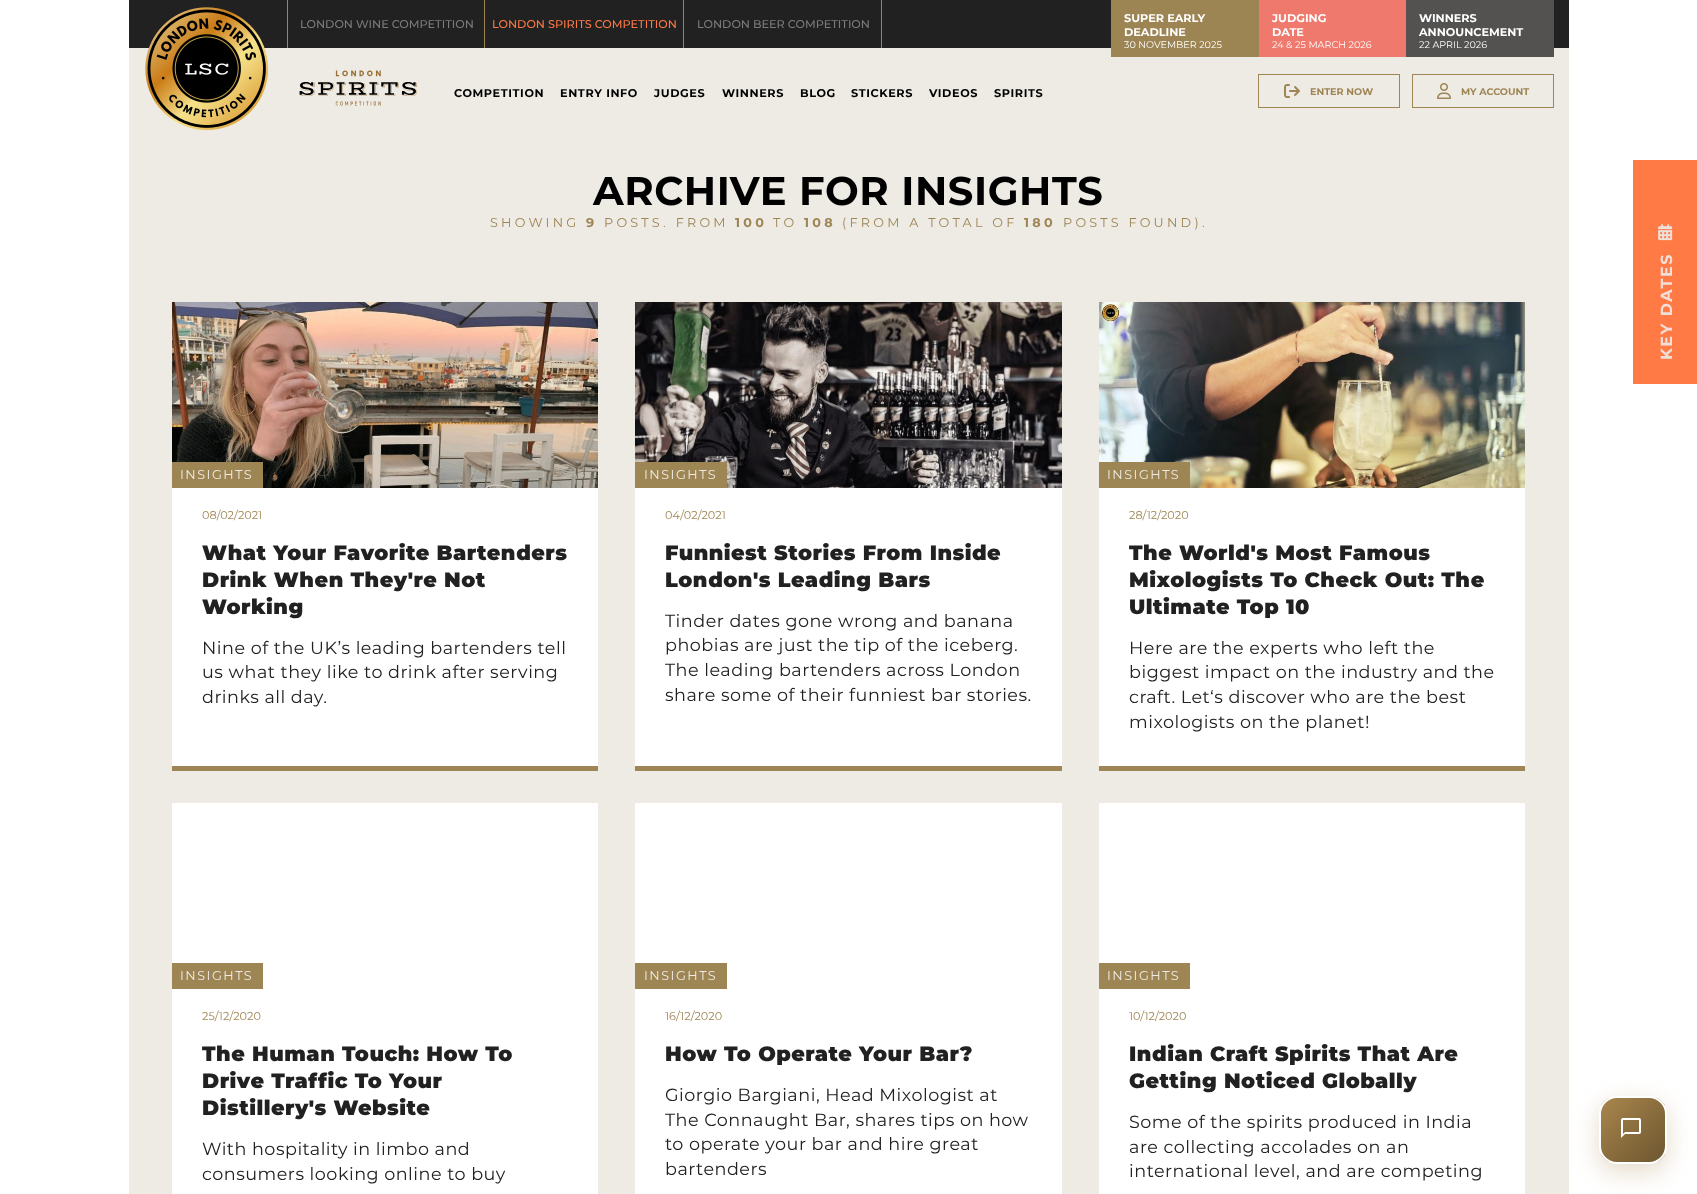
<svg xmlns="http://www.w3.org/2000/svg" xmlns:xlink="http://www.w3.org/1999/xlink" width="1697" height="1194" viewBox="0 0 1697 1194">
<style>
.cls-1{font:500 11.25px Montserrat;fill:#7c7c7c}
.cls-2{font:500 11.25px Montserrat;fill:#ff7a45}
.cls-3{font:bold 11.25px Montserrat;fill:#ffffff}
.cls-4{font:9.6px Montserrat;fill:#ffffff}
.cls-5{font:bold 11.25px Montserrat;letter-spacing:0.6px;fill:#000000}
.cls-6{font:bold 9.6px Montserrat;fill:#9e8554}
.cls-7{font:bold 40px Montserrat;letter-spacing:0.6px;fill:#000000}
.cls-8{font:12.75px Montserrat;letter-spacing:3.25px;fill:#9e8554}
.cls-9{font:bold 12.75px Montserrat;letter-spacing:3.25px;fill:#9e8554}
.cls-10{font:12.75px Montserrat;letter-spacing:1.5px;fill:#eeebe5}
.cls-11{font:11.25px Montserrat;fill:#9e8554}
.cls-12{font:900 20.75px Montserrat;letter-spacing:0.5px;fill:#212121}
.cls-13{font:17.6px Montserrat;letter-spacing:0.5px;fill:#212121}
.cls-14{font:bold 16px Montserrat;letter-spacing:1.5px;fill:#efdfd8}
</style>
<defs>
<clipPath id="clip1"><rect x="1599" y="1096" width="68" height="68" rx="18"/></clipPath>
<linearGradient id="g1" gradientUnits="userSpaceOnUse" x1="1601" y1="1098" x2="1665" y2="1162"><stop offset="0" stop-color="#a9864d"/><stop offset="1" stop-color="#6d562f"/></linearGradient>
</defs>
<rect width="100%" height="100%" fill="#ffffff"/>
<rect fill="#212121" x="129" y="0" width="1440" height="48"/>
<rect fill="#9e8453" x="484" y="0" width="1" height="48"/>
<rect fill="#9e8554" x="287" y="0" width="1" height="48"/>
<rect fill="#9e8453" x="683" y="0" width="1" height="48"/>
<rect fill="#9e8453" x="881" y="0" width="1" height="48"/>
<rect fill="#eeebe5" x="129" y="48" width="1440" height="1146"/>
<rect fill="#9d8553" x="1111" y="0" width="148" height="57"/>
<rect fill="#ee796c" x="1259" y="0" width="147" height="57"/>
<rect fill="#535251" x="1406" y="0" width="148" height="57"/>
<image xlink:href="image0.png" x="145" y="7" width="124" height="124"/>
<image xlink:href="image1.png" x="299" y="70" width="119" height="36"/>
<rect fill="none" stroke="#9e8554" x="1258.5" y="74.5" width="141" height="33"/>
<image xlink:href="image2.png" x="1284" y="84" width="16" height="14"/>
<rect fill="none" stroke="#9e8554" x="1412.5" y="74.5" width="141" height="33"/>
<image xlink:href="image3.png" x="1437" y="83" width="14" height="16"/>
<rect fill="#ffffff" x="172" y="488" width="426" height="278"/>
<rect fill="#9e8554" x="172" y="766" width="426" height="5"/>
<image xlink:href="image4.png" x="172" y="302" width="426" height="186"/>
<rect fill="#9e8554" x="172" y="462" width="91" height="26"/>
<rect fill="#ffffff" x="635" y="488" width="427" height="278"/>
<rect fill="#9e8554" x="635" y="766" width="427" height="5"/>
<image xlink:href="image5.png" x="635" y="302" width="427" height="186"/>
<rect fill="#9e8554" x="635" y="462" width="92" height="26"/>
<rect fill="#ffffff" x="1099" y="488" width="426" height="278"/>
<rect fill="#9e8554" x="1099" y="766" width="426" height="5"/>
<image xlink:href="image6.png" x="1099" y="302" width="426" height="186"/>
<rect fill="#9e8554" x="1099" y="462" width="91" height="26"/>
<rect fill="#ffffff" x="172" y="803" width="426" height="391"/>
<rect fill="#9e8554" x="172" y="963" width="91" height="26"/>
<rect fill="#ffffff" x="635" y="803" width="427" height="391"/>
<rect fill="#9e8554" x="635" y="963" width="92" height="26"/>
<rect fill="#ffffff" x="1099" y="803" width="426" height="391"/>
<rect fill="#9e8554" x="1099" y="963" width="91" height="26"/>
<rect fill="#ff7a45" x="1633" y="160" width="64" height="224"/>
<image xlink:href="image7.png" x="1658" y="224" width="15" height="17"/>
<rect fill="#a9864d" fill-opacity="0.3" filter="blur(12px)" x="1599" y="1104" width="68" height="68" rx="18"/>
<g clip-path="url(#clip1)">
<rect fill="url(#g1)" x="1601" y="1098" width="64" height="64"/>
</g>
<rect fill="none" stroke="#ffffff" stroke-width="2" x="1600" y="1097" width="66" height="66" rx="17"/>
<image xlink:href="image8.png" x="1621" y="1118" width="20" height="20"/>
<text class="cls-1" x="300" y="28">LONDON WINE COMPETITION</text>
<text class="cls-2" x="492" y="28">LONDON SPIRITS COMPETITION</text>
<text class="cls-1" x="697" y="28">LONDON BEER COMPETITION</text>
<text class="cls-3"><tspan x="1124" y="22">SUPER EARLY</tspan><tspan x="1124" y="36">DEADLINE</tspan></text>
<text class="cls-4" x="1124" y="48">30 NOVEMBER 2025</text>
<text class="cls-3"><tspan x="1272" y="22">JUDGING</tspan><tspan x="1272" y="36">DATE</tspan></text>
<text class="cls-4" x="1272" y="48">24 &amp; 25 MARCH 2026</text>
<text class="cls-3"><tspan x="1419" y="22">WINNERS</tspan><tspan x="1419" y="36">ANNOUNCEMENT</tspan></text>
<text class="cls-4" x="1419" y="48">22 APRIL 2026</text>
<text class="cls-5" x="454" y="97">COMPETITION</text>
<text class="cls-5" x="560" y="97">ENTRY INFO</text>
<text class="cls-5" x="654" y="97">JUDGES</text>
<text class="cls-5" x="722" y="97">WINNERS</text>
<text class="cls-5" x="800" y="97">BLOG</text>
<text class="cls-5" x="851" y="97">STICKERS</text>
<text class="cls-5" x="929" y="97">VIDEOS</text>
<text class="cls-5" x="994" y="97">SPIRITS</text>
<text class="cls-6" x="1310" y="95">ENTER NOW</text>
<text class="cls-6" x="1461" y="95">MY ACCOUNT</text>
<text class="cls-7" x="593" y="205">ARCHIVE FOR INSIGHTS</text>
<text class="cls-8" x="490" y="227">SHOWING</text>
<text class="cls-9" x="586" y="227">9</text>
<text class="cls-8" x="604" y="227">POSTS. FROM</text>
<text class="cls-9" x="735" y="227">100</text>
<text class="cls-8" x="773" y="227">TO</text>
<text class="cls-9" x="804" y="227">108</text>
<text class="cls-8" x="842" y="227">(FROM A TOTAL OF</text>
<text class="cls-9" x="1024" y="227">180</text>
<text class="cls-8" x="1063" y="227">POSTS FOUND).</text>
<text class="cls-10" x="180" y="479">INSIGHTS</text>
<text class="cls-11" x="202" y="519">08/02/2021</text>
<text class="cls-12"><tspan x="202" y="560">What Your Favorite Bartenders</tspan><tspan x="202" y="587">Drink When They're Not</tspan><tspan x="202" y="614">Working</tspan></text>
<text class="cls-13"><tspan x="202" y="654">Nine of the UK’s leading bartenders tell</tspan><tspan x="202" y="678">us what they like to drink after serving</tspan><tspan x="202" y="703">drinks all day.</tspan></text>
<text class="cls-10" x="644" y="479">INSIGHTS</text>
<text class="cls-11" x="665" y="519">04/02/2021</text>
<text class="cls-12"><tspan x="665" y="560">Funniest Stories From Inside</tspan><tspan x="665" y="587">London's Leading Bars</tspan></text>
<text class="cls-13"><tspan x="665" y="627">Tinder dates gone wrong and banana</tspan><tspan x="665" y="651">phobias are just the tip of the iceberg.</tspan><tspan x="665" y="676">The leading bartenders across London</tspan><tspan x="665" y="701">share some of their funniest bar stories.</tspan></text>
<text class="cls-10" x="1107" y="479">INSIGHTS</text>
<text class="cls-11" x="1129" y="519">28/12/2020</text>
<text class="cls-12"><tspan x="1129" y="560">The World's Most Famous</tspan><tspan x="1129" y="587">Mixologists To Check Out: The</tspan><tspan x="1129" y="614">Ultimate Top 10</tspan></text>
<text class="cls-13"><tspan x="1129" y="654">Here are the experts who left the</tspan><tspan x="1129" y="678">biggest impact on the industry and the</tspan><tspan x="1129" y="703">craft. Let‘s discover who are the best</tspan><tspan x="1129" y="728">mixologists on the planet!</tspan></text>
<text class="cls-10" x="180" y="980">INSIGHTS</text>
<text class="cls-11" x="202" y="1020">25/12/2020</text>
<text class="cls-12"><tspan x="202" y="1061">The Human Touch: How To</tspan><tspan x="202" y="1088">Drive Traffic To Your</tspan><tspan x="202" y="1115">Distillery's Website</tspan></text>
<text class="cls-13"><tspan x="202" y="1155">With hospitality in limbo and</tspan><tspan x="202" y="1180">consumers looking online to buy</tspan></text>
<text class="cls-10" x="644" y="980">INSIGHTS</text>
<text class="cls-11" x="665" y="1020">16/12/2020</text>
<text class="cls-12" x="665" y="1061">How To Operate Your Bar?</text>
<text class="cls-13"><tspan x="665" y="1101">Giorgio Bargiani, Head Mixologist at</tspan><tspan x="665" y="1126">The Connaught Bar, shares tips on how</tspan><tspan x="665" y="1150">to operate your bar and hire great</tspan><tspan x="665" y="1175">bartenders</tspan></text>
<text class="cls-10" x="1107" y="980">INSIGHTS</text>
<text class="cls-11" x="1129" y="1020">10/12/2020</text>
<text class="cls-12"><tspan x="1129" y="1061">Indian Craft Spirits That Are</tspan><tspan x="1129" y="1088">Getting Noticed Globally</tspan></text>
<text class="cls-13"><tspan x="1129" y="1128">Some of the spirits produced in India</tspan><tspan x="1129" y="1153">are collecting accolades on an</tspan><tspan x="1129" y="1177">international level, and are competing</tspan></text>
<text class="cls-14" x="1672" y="360" transform="rotate(-90 1672 360)">KEY DATES</text>
</svg>
